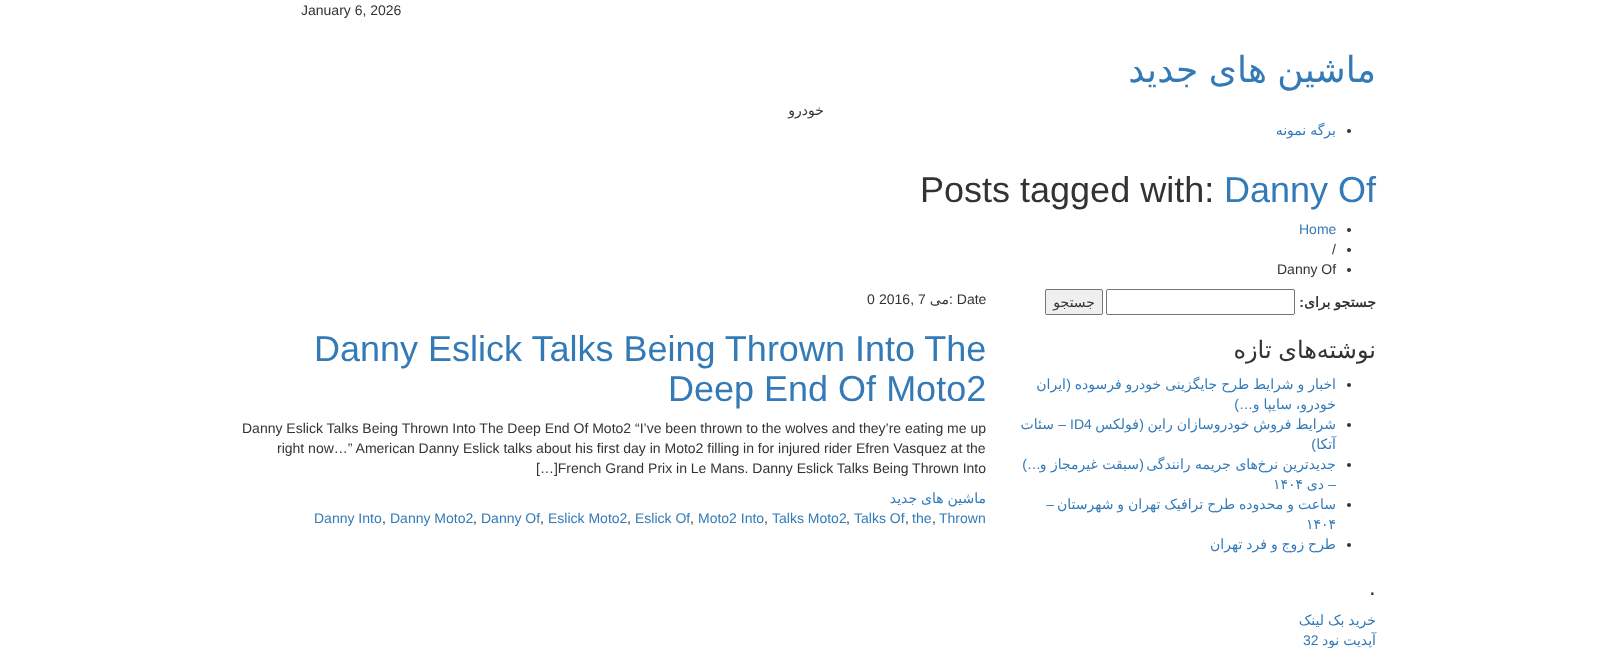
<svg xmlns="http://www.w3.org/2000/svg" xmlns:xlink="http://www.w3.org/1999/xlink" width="1612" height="648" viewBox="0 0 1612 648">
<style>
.cls-1{font:14px Liberation Sans;fill:#333333}
.cls-2{font:36px DejaVu Sans;direction:rtl;fill:#337ab7}
.cls-3{font:14px DejaVu Sans;direction:rtl;fill:#333333}
.cls-4{font:14px DejaVu Sans;direction:rtl;fill:#337ab7}
.cls-5{font:36px Liberation Sans;fill:#333333}
.cls-6{font:36px Liberation Sans;fill:#337ab7}
.cls-7{font:14px Liberation Sans;fill:#337ab7}
.cls-8{font:bold 14px Liberation Sans;direction:rtl;fill:#333333}
.cls-9{font:bold 14px DejaVu Sans;direction:rtl;fill:#333333}
.cls-10{font:24px DejaVu Sans;direction:rtl;fill:#333333}
.cls-11{font:14px Liberation Sans;direction:rtl;fill:#337ab7}
.cls-12{font:14px DejaVu Sans;fill:#337ab7}
.cls-13{font:24px Liberation Sans;fill:#333333}
</style>
<rect width="100%" height="100%" fill="#ffffff"/>
<circle fill="#333333" cx="1349" cy="131" r="2"/>
<circle fill="#333333" cx="1349" cy="230" r="2"/>
<circle fill="#333333" cx="1349" cy="250" r="2"/>
<circle fill="#333333" cx="1349" cy="270" r="2"/>
<rect fill="#efefef" stroke="#767676" x="1045.5" y="289.5" width="57" height="25" rx="1.5"/>
<rect fill="none" stroke="#767676" x="1106.5" y="289.5" width="188" height="25" rx="1.5"/>
<circle fill="#333333" cx="1349" cy="385" r="2"/>
<circle fill="#333333" cx="1349" cy="425" r="2"/>
<circle fill="#333333" cx="1349" cy="465" r="2"/>
<circle fill="#333333" cx="1349" cy="505" r="2"/>
<circle fill="#333333" cx="1349" cy="545" r="2"/>
<text class="cls-1" x="301" y="15">January 6, 2026</text>
<text class="cls-2" x="1376" y="82" word-spacing="-1">ماشین های جدید</text>
<text class="cls-3" x="824" y="115">خودرو</text>
<text class="cls-4" x="1336" y="135" word-spacing="-0.5">برگه نمونه</text>
<text class="cls-5" x="920" y="202">Posts tagged with:</text>
<text class="cls-6" x="1224" y="202">Danny Of</text>
<text class="cls-7" x="1299" y="234">Home</text>
<text class="cls-1" x="1332" y="254">/</text>
<text class="cls-1" x="1277" y="274">Danny Of</text>
<text class="cls-1" x="867" y="304">0</text>
<text class="cls-1" x="879" y="304">2016, 7</text>
<text class="cls-3" x="949" y="304">می</text>
<text class="cls-1" x="949" y="304">: Date</text>
<text class="cls-6" x="314" y="361">Danny Eslick Talks Being Thrown Into The</text>
<text class="cls-6" x="668" y="401">Deep End Of Moto2</text>
<text class="cls-1" x="242" y="433">Danny Eslick Talks Being Thrown Into The Deep End Of Moto2 “I’ve been thrown to the wolves and they’re eating me up</text>
<text class="cls-1" x="277" y="453">right now…” American Danny Eslick talks about his first day in Moto2 filling in for injured rider Efren Vasquez at the</text>
<text class="cls-1" x="536" y="473">[…]French Grand Prix in Le Mans. Danny Eslick Talks Being Thrown Into</text>
<text class="cls-4" x="986" y="503" word-spacing="-0.5">ماشین های جدید</text>
<text class="cls-7" x="314" y="523">Danny Into</text>
<text class="cls-1" x="382" y="523">,</text>
<text class="cls-7" x="390" y="523">Danny Moto2</text>
<text class="cls-1" x="473" y="523">,</text>
<text class="cls-7" x="481" y="523">Danny Of</text>
<text class="cls-1" x="540" y="523">,</text>
<text class="cls-7" x="548" y="523">Eslick Moto2</text>
<text class="cls-1" x="627" y="523">,</text>
<text class="cls-7" x="635" y="523">Eslick Of</text>
<text class="cls-1" x="690" y="523">,</text>
<text class="cls-7" x="698" y="523">Moto2 Into</text>
<text class="cls-1" x="764" y="523">,</text>
<text class="cls-7" x="772" y="523">Talks Moto2</text>
<text class="cls-1" x="846" y="523">,</text>
<text class="cls-7" x="854" y="523">Talks Of</text>
<text class="cls-1" x="905" y="523">,</text>
<text class="cls-7" x="912" y="523">the</text>
<text class="cls-1" x="932" y="523">,</text>
<text class="cls-7" x="939" y="523">Thrown</text>
<text class="cls-3" x="1095" y="307">جستجو</text>
<text class="cls-8" x="1304" y="307">:</text>
<text class="cls-9" x="1376" y="307" word-spacing="-0.5">جستجو برای</text>
<text class="cls-10" x="1317" y="358" word-spacing="-1">های تازه</text>
<text class="cls-10" x="1376" y="358">نوشته</text>
<text class="cls-4" x="1066" y="389">ایران</text>
<text class="cls-11" x="1071" y="389">(</text>
<text class="cls-4" x="1336" y="389" word-spacing="-0.5">اخبار و شرایط طرح جایگزینی خودرو فرسوده</text>
<text class="cls-11" x="1253" y="409">…)</text>
<text class="cls-4" x="1336" y="409" word-spacing="-0.5">خودرو، سایپا و</text>
<text class="cls-4" x="1054" y="429">سئات</text>
<text class="cls-11" x="1066" y="429">–</text>
<text class="cls-7" x="1070" y="429">ID4</text>
<text class="cls-4" x="1139" y="429">فولکس</text>
<text class="cls-11" x="1144" y="429">(</text>
<text class="cls-4" x="1336" y="429" word-spacing="-0.5">شرایط فروش خودروسازان راین</text>
<text class="cls-11" x="1316" y="449">)</text>
<text class="cls-4" x="1336" y="449">آتکا</text>
<text class="cls-11" x="1041" y="469">…)</text>
<text class="cls-4" x="1139" y="469">سبقت غیرمجاز و</text>
<text class="cls-11" x="1144" y="469">(</text>
<text class="cls-4" x="1258" y="469">های جریمه رانندگی</text>
<text class="cls-4" x="1336" y="469">جدیدترین نرخ</text>
<text class="cls-12" x="1273" y="489">۱۴۰۴</text>
<text class="cls-4" x="1324" y="489">دی</text>
<text class="cls-11" x="1336" y="489">–</text>
<text class="cls-11" x="1054" y="509">–</text>
<text class="cls-4" x="1336" y="509" word-spacing="-0.5">ساعت و محدوده طرح ترافیک تهران و شهرستان</text>
<text class="cls-12" x="1306" y="529">۱۴۰۴</text>
<text class="cls-4" x="1336" y="549" word-spacing="-0.5">طرح زوج و فرد تهران</text>
<text class="cls-13" x="1369" y="595">.</text>
<text class="cls-4" x="1376" y="625" word-spacing="-0.5">خرید بک لینک</text>
<text class="cls-7" x="1303" y="645">32</text>
<text class="cls-4" x="1376" y="645" word-spacing="-0.5">آپدیت نود</text>
</svg>
